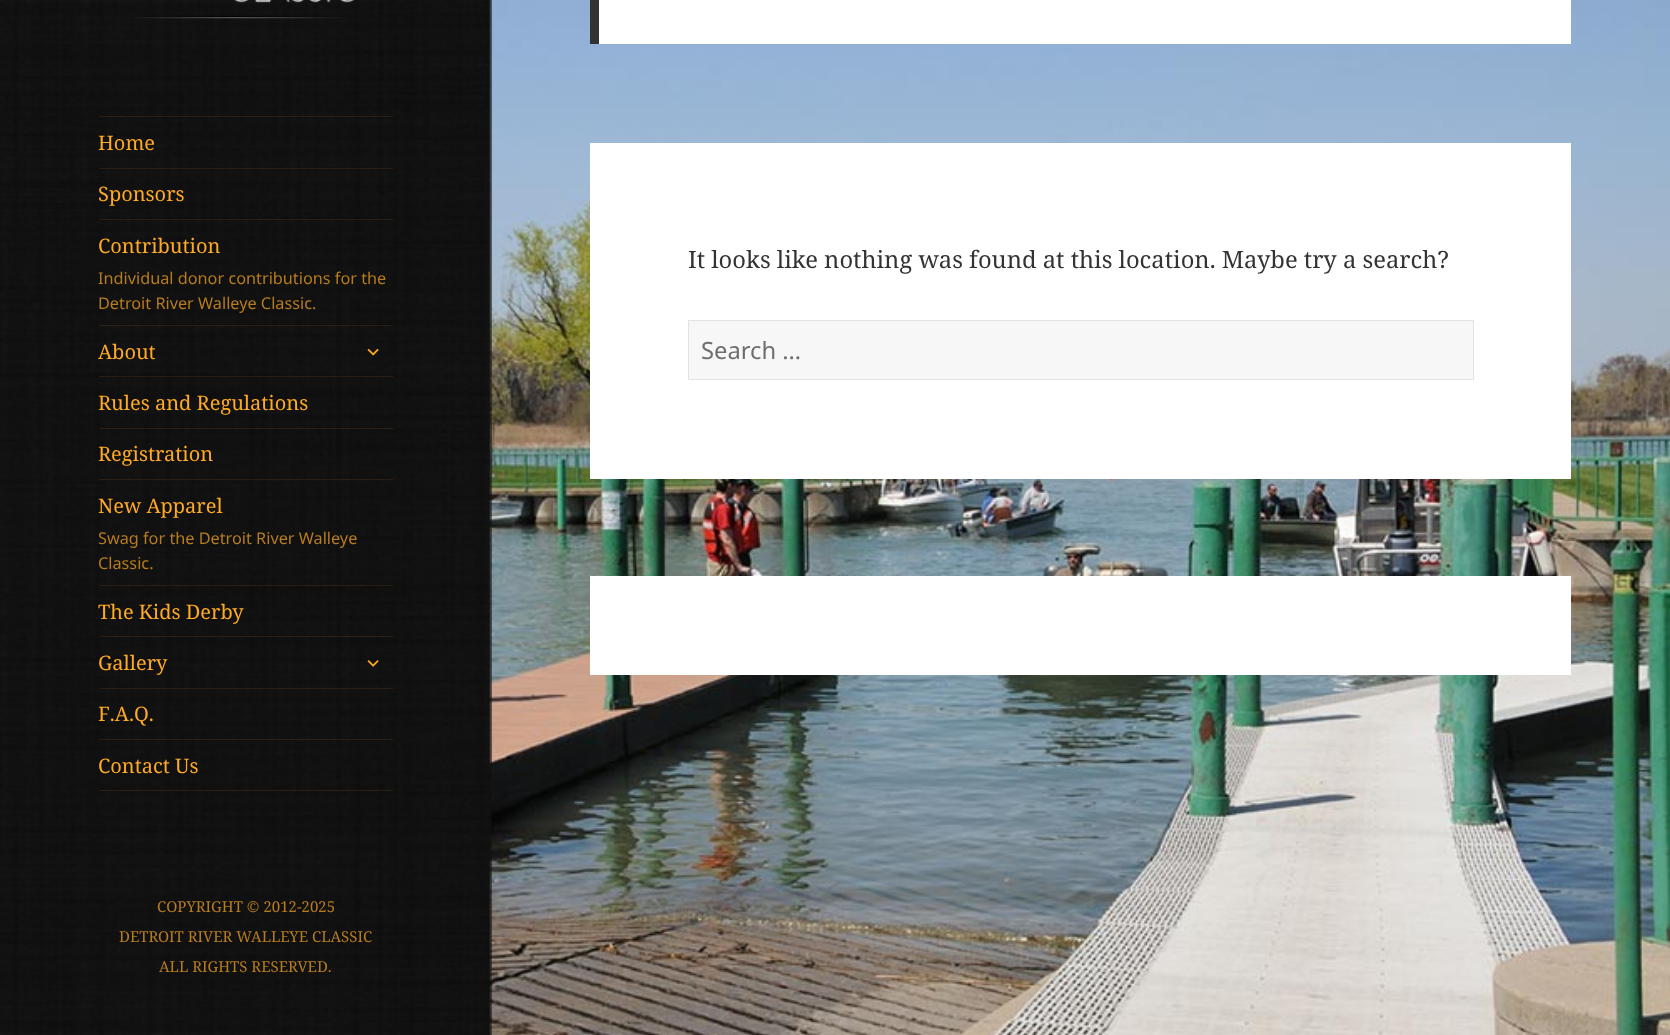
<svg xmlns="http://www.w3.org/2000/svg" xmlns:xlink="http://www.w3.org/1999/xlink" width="1670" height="1035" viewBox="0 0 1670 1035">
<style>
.cls-1{font:20px Noto Serif;fill:#ffaa24}
.cls-2{font:16.25px Noto Sans;fill:#b77c1e}
.cls-3{font:15px Noto Serif;fill:#b77c1e}
.cls-4{font:23.75px Noto Serif;fill:#333333}
.cls-5{font:23.75px Noto Sans;fill:#6e6e6e}
</style>
<rect width="100%" height="100%" fill="#ffffff"/>
<image xlink:href="image0.png" x="489" y="0" width="1181" height="1035"/>
<image xlink:href="image1.png" x="0" y="0" width="492" height="1035"/>
<image xlink:href="image2.png" x="130" y="0" width="224" height="19"/>
<rect fill="#ffaa24" fill-opacity="0.1" x="99" y="116" width="294" height="1"/>
<rect fill="#ffaa24" fill-opacity="0.1" x="99" y="790" width="294" height="1"/>
<rect fill="#ffaa24" fill-opacity="0.1" x="99" y="168" width="294" height="1"/>
<rect fill="#ffaa24" fill-opacity="0.1" x="99" y="219" width="294" height="1"/>
<rect fill="#ffaa24" fill-opacity="0.1" x="99" y="325" width="294" height="1"/>
<image xlink:href="image3.png" x="367" y="348" width="12" height="8"/>
<rect fill="#ffaa24" fill-opacity="0.1" x="99" y="376" width="294" height="1"/>
<rect fill="#ffaa24" fill-opacity="0.1" x="99" y="428" width="294" height="1"/>
<rect fill="#ffaa24" fill-opacity="0.1" x="99" y="479" width="294" height="1"/>
<rect fill="#ffaa24" fill-opacity="0.1" x="99" y="585" width="294" height="1"/>
<rect fill="#ffaa24" fill-opacity="0.1" x="99" y="636" width="294" height="1"/>
<image xlink:href="image4.png" x="367" y="660" width="12" height="7"/>
<rect fill="#ffaa24" fill-opacity="0.1" x="99" y="688" width="294" height="1"/>
<rect fill="#ffaa24" fill-opacity="0.1" x="99" y="739" width="294" height="1"/>
<rect fill="#ffffff" x="599" y="0" width="972" height="44"/>
<rect fill="#333333" x="590" y="0" width="9" height="44"/>
<rect fill="#ffffff" x="590" y="143" width="981" height="336"/>
<rect fill="#f7f7f7" stroke="#e3e3e3" x="688.5" y="320.5" width="785" height="59"/>
<rect fill="#ffffff" x="590" y="576" width="981" height="99"/>
<text class="cls-1" x="98" y="150">Home</text>
<text class="cls-1" x="98" y="201">Sponsors</text>
<text class="cls-1" x="98" y="253">Contribution</text>
<text class="cls-2"><tspan x="98" y="284">Individual donor contributions for the</tspan><tspan x="98" y="309">Detroit River Walleye Classic.</tspan></text>
<text class="cls-1" x="98" y="359">About</text>
<text class="cls-1" x="98" y="410">Rules and Regulations</text>
<text class="cls-1" x="98" y="461">Registration</text>
<text class="cls-1" x="98" y="513">New Apparel</text>
<text class="cls-2"><tspan x="98" y="544">Swag for the Detroit River Walleye</tspan><tspan x="98" y="569">Classic.</tspan></text>
<text class="cls-1" x="98" y="619">The Kids Derby</text>
<text class="cls-1" x="98" y="670">Gallery</text>
<text class="cls-1" x="98" y="721">F.A.Q.</text>
<text class="cls-1" x="98" y="773">Contact Us</text>
<text class="cls-3" x="157" y="912">COPYRIGHT © 2012-2025</text>
<text class="cls-3" x="119" y="942">DETROIT RIVER WALLEYE CLASSIC</text>
<text class="cls-3" x="159" y="972">ALL RIGHTS RESERVED.</text>
<text class="cls-4" x="688" y="268">It looks like nothing was found at this location. Maybe try a search?</text>
<text class="cls-5" x="701" y="359">Search …</text>
</svg>
